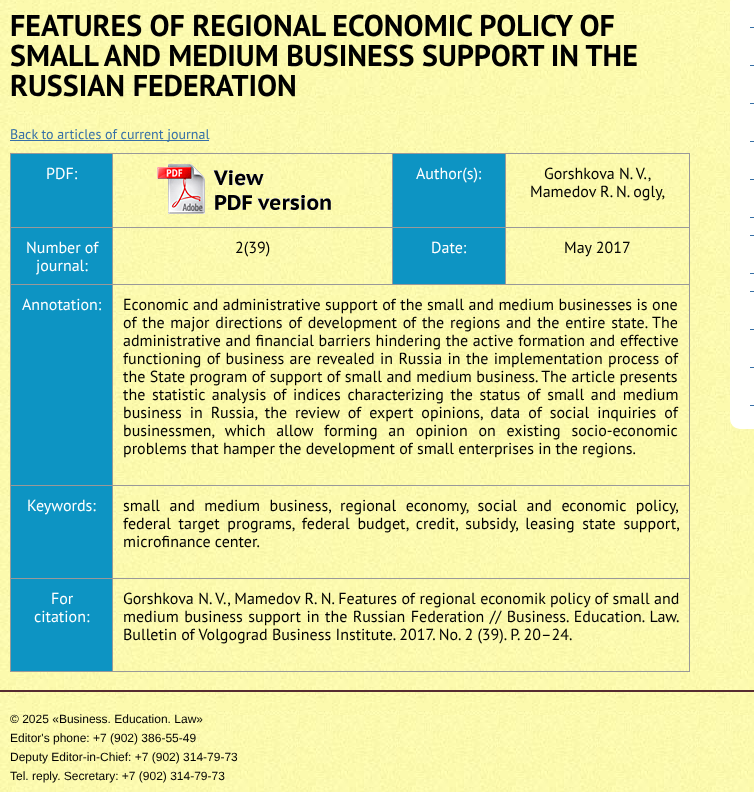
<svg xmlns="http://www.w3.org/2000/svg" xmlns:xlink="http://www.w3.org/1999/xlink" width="754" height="792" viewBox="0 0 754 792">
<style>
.cls-1{font:bold 30px PT Sans;fill:#000000}
.cls-2{font:14px PT Sans;fill:#3770a7}
.cls-3{font:16px PT Sans;fill:#ffffff}
.cls-4{font:16px PT Sans;fill:#000000}
.cls-5{font:12px Liberation Sans;fill:#000000}
</style>
<rect width="100%" height="100%" fill="#ffffff"/>
<image xlink:href="image0.png" x="0" y="0" width="754" height="792"/>
<rect fill="#3770a7" x="10" y="140" width="199" height="1"/>
<rect fill="#999999" x="10" y="153" width="680" height="1"/>
<rect fill="#999999" x="689" y="153" width="1" height="519"/>
<rect fill="#999999" x="10" y="671" width="680" height="1"/>
<rect fill="#999999" x="10" y="153" width="1" height="519"/>
<rect fill="#0d94c3" x="11" y="154" width="101" height="73"/>
<rect fill="#999999" x="505" y="227" width="185" height="1"/>
<rect fill="#999999" x="112" y="284" width="578" height="1"/>
<rect fill="#999999" x="505" y="227" width="1" height="58"/>
<rect fill="#999999" x="392" y="227" width="114" height="1"/>
<rect fill="#999999" x="392" y="227" width="1" height="58"/>
<rect fill="#999999" x="112" y="227" width="281" height="1"/>
<rect fill="#999999" x="112" y="485" width="578" height="1"/>
<rect fill="#999999" x="112" y="578" width="578" height="1"/>
<rect fill="#999999" x="112" y="578" width="1" height="94"/>
<rect fill="#999999" x="10" y="578" width="103" height="1"/>
<rect fill="#999999" x="112" y="485" width="1" height="94"/>
<rect fill="#999999" x="10" y="485" width="103" height="1"/>
<rect fill="#999999" x="112" y="284" width="1" height="202"/>
<rect fill="#999999" x="10" y="284" width="103" height="1"/>
<rect fill="#999999" x="112" y="227" width="1" height="58"/>
<rect fill="#999999" x="10" y="227" width="103" height="1"/>
<rect fill="#999999" x="112" y="153" width="1" height="75"/>
<image xlink:href="image1.png" x="157" y="164" width="174" height="50"/>
<rect fill="#0d94c3" x="393" y="154" width="112" height="73"/>
<rect fill="#999999" x="392" y="153" width="1" height="75"/>
<rect fill="#999999" x="505" y="153" width="1" height="75"/>
<rect fill="#0d94c3" x="11" y="228" width="101" height="56"/>
<rect fill="#0d94c3" x="393" y="228" width="112" height="56"/>
<rect fill="#0d94c3" x="11" y="285" width="101" height="200"/>
<rect fill="#0d94c3" x="11" y="486" width="101" height="92"/>
<rect fill="#0d94c3" x="11" y="579" width="101" height="92"/>
<rect fill="#ffffff" x="730" y="-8" width="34" height="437" rx="10"/>
<rect fill="#3770a7" x="750" y="27" width="4" height="1"/>
<rect fill="#3770a7" x="750" y="65" width="4" height="1"/>
<rect fill="#3770a7" x="750" y="103" width="4" height="1"/>
<rect fill="#3770a7" x="750" y="141" width="4" height="1"/>
<rect fill="#3770a7" x="750" y="179" width="4" height="1"/>
<rect fill="#3770a7" x="750" y="217" width="4" height="1"/>
<rect fill="#3770a7" x="750" y="235" width="4" height="1"/>
<rect fill="#3770a7" x="750" y="273" width="4" height="1"/>
<rect fill="#3770a7" x="750" y="291" width="4" height="1"/>
<rect fill="#3770a7" x="750" y="329" width="4" height="1"/>
<rect fill="#3770a7" x="750" y="367" width="4" height="1"/>
<rect fill="#3770a7" x="750" y="405" width="4" height="1"/>
<rect fill="#562c31" x="0" y="690" width="754" height="2"/>
<text class="cls-1"><tspan x="10" y="36">FEATURES OF REGIONAL ECONOMIC POLICY OF</tspan><tspan x="10" y="66">SMALL AND MEDIUM BUSINESS SUPPORT IN THE</tspan><tspan x="10" y="96">RUSSIAN FEDERATION</tspan></text>
<text class="cls-2" x="10" y="139">Back to articles of current journal</text>
<text class="cls-3" x="46" y="179">PDF:</text>
<text class="cls-3" x="416" y="179">Author(s):</text>
<text class="cls-4" x="544" y="179">Gorshkova N. V.,</text>
<text class="cls-4" x="530" y="197">Mamedov R. N. ogly,</text>
<text class="cls-3" x="26" y="253">Number of</text>
<text class="cls-3" x="36" y="271">journal:</text>
<text class="cls-4" x="235" y="253">2(39)</text>
<text class="cls-3" x="431" y="253">Date:</text>
<text class="cls-4" x="564" y="253">May 2017</text>
<text class="cls-3" x="22" y="310">Annotation:</text>
<text class="cls-4"><tspan x="123" y="310" word-spacing="0.25">Economic and administrative support of the small and medium businesses is one</tspan><tspan x="123" y="328" word-spacing="1.5">of the major directions of development of the regions and the entire state. The</tspan><tspan x="123" y="346" word-spacing="0.5">administrative and financial barriers hindering the active formation and effective</tspan><tspan x="123" y="364" word-spacing="1.1">functioning of business are revealed in Russia in the implementation process of</tspan><tspan x="123" y="382" word-spacing="0.25">the State program of support of small and medium business. The article presents</tspan><tspan x="123" y="400" word-spacing="2.4">the statistic analysis of indices characterizing the status of small and medium</tspan><tspan x="123" y="418" word-spacing="3.75">business in Russia, the review of expert opinions, data of social inquiries of</tspan><tspan x="123" y="436" word-spacing="6.5">businessmen, which allow forming an opinion on existing socio-economic</tspan><tspan x="123" y="454">problems that hamper the development of small enterprises in the regions.</tspan></text>
<text class="cls-3" x="27" y="511">Keywords:</text>
<text class="cls-4"><tspan x="123" y="511" word-spacing="5.25">small and medium business, regional economy, social and economic policy,</tspan><tspan x="123" y="529" word-spacing="3.5">federal target programs, federal budget, credit, subsidy, leasing state support,</tspan><tspan x="123" y="547">microfinance center.</tspan></text>
<text class="cls-3" x="51" y="604">For</text>
<text class="cls-3" x="34" y="622">citation:</text>
<text class="cls-4"><tspan x="123" y="604" word-spacing="0.25">Gorshkova N. V., Mamedov R. N. Features of regional economik policy of small and</tspan><tspan x="123" y="622" word-spacing="1.25">medium business support in the Russian Federation // Business. Education. Law.</tspan><tspan x="123" y="640">Bulletin of Volgograd Business Institute. 2017. No. 2 (39). P. 20–24.</tspan></text>
<text class="cls-5"><tspan x="10" y="723">© 2025 «Business. Education. Law»</tspan><tspan x="10" y="742">Editor's phone: +7 (902) 386-55-49</tspan><tspan x="10" y="761">Deputy Editor-in-Chief: +7 (902) 314-79-73</tspan><tspan x="10" y="780">Tel. reply. Secretary: +7 (902) 314-79-73</tspan></text>
</svg>
